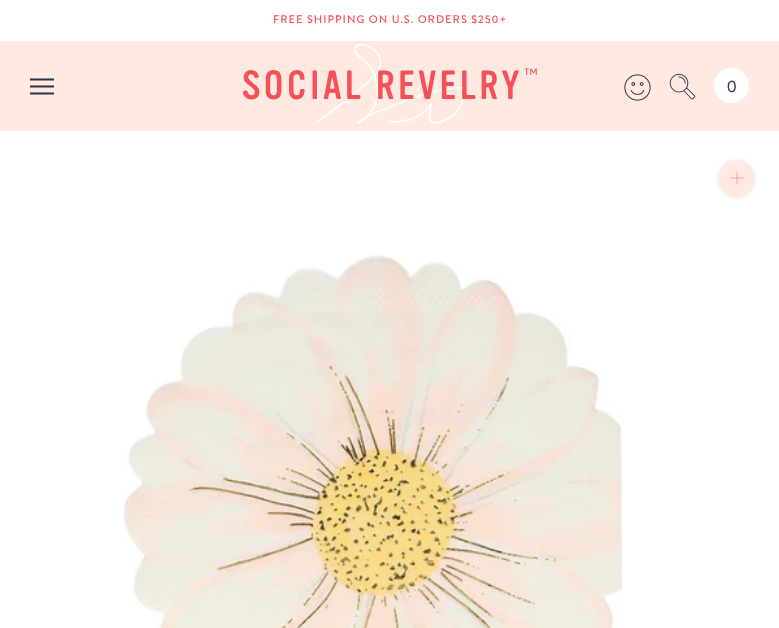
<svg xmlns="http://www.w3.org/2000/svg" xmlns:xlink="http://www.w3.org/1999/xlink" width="779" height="628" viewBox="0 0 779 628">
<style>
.cls-1{font:500 11px Brandon Grotesque;letter-spacing:1px;fill:#f65058}
.cls-2{font:40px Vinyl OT;letter-spacing:3.5px;fill:#f65058}
.cls-3{font:18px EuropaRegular;fill:#f65058}
.cls-4{font:16px EuropaRegular;fill:#293447}
</style>
<rect width="100%" height="100%" fill="#ffffff"/>
<rect fill="#ffe9e0" x="0" y="41" width="779" height="90"/>
<image xlink:href="image0.png" x="316" y="44" width="148" height="80"/>
<image xlink:href="image1.png" x="30" y="78" width="24" height="17"/>
<image xlink:href="image2.png" x="624" y="74" width="27" height="27"/>
<image xlink:href="image3.png" x="669" y="73" width="27" height="27"/>
<circle fill="#ffffff" cx="731.5" cy="85.5" r="17.5"/>
<rect fill="#363636" fill-opacity="0.15" filter="blur(2.5px)" x="719" y="161" width="35" height="36" rx="17.5"/>
<rect fill="#ffe9e0" x="719" y="160" width="35" height="36" rx="17.5"/>
<path fill="none" stroke="#fb9d9c" stroke-width="0.9" stroke-linecap="square" d="M737 172V184"/>
<path fill="none" stroke="#f65058" stroke-opacity="0.5" stroke-width="0.9" stroke-linecap="square" d="M731 178H743"/>
<image xlink:href="image4.png" x="123" y="255" width="501" height="373"/>
<text class="cls-1" x="273" y="23">FREE SHIPPING ON U.S. ORDERS $250+</text>
<text class="cls-2" x="242" y="99">SOCIAL REVELRY</text>
<text class="cls-3" x="524" y="81">™</text>
<text class="cls-4" x="727" y="92">0</text>
</svg>
